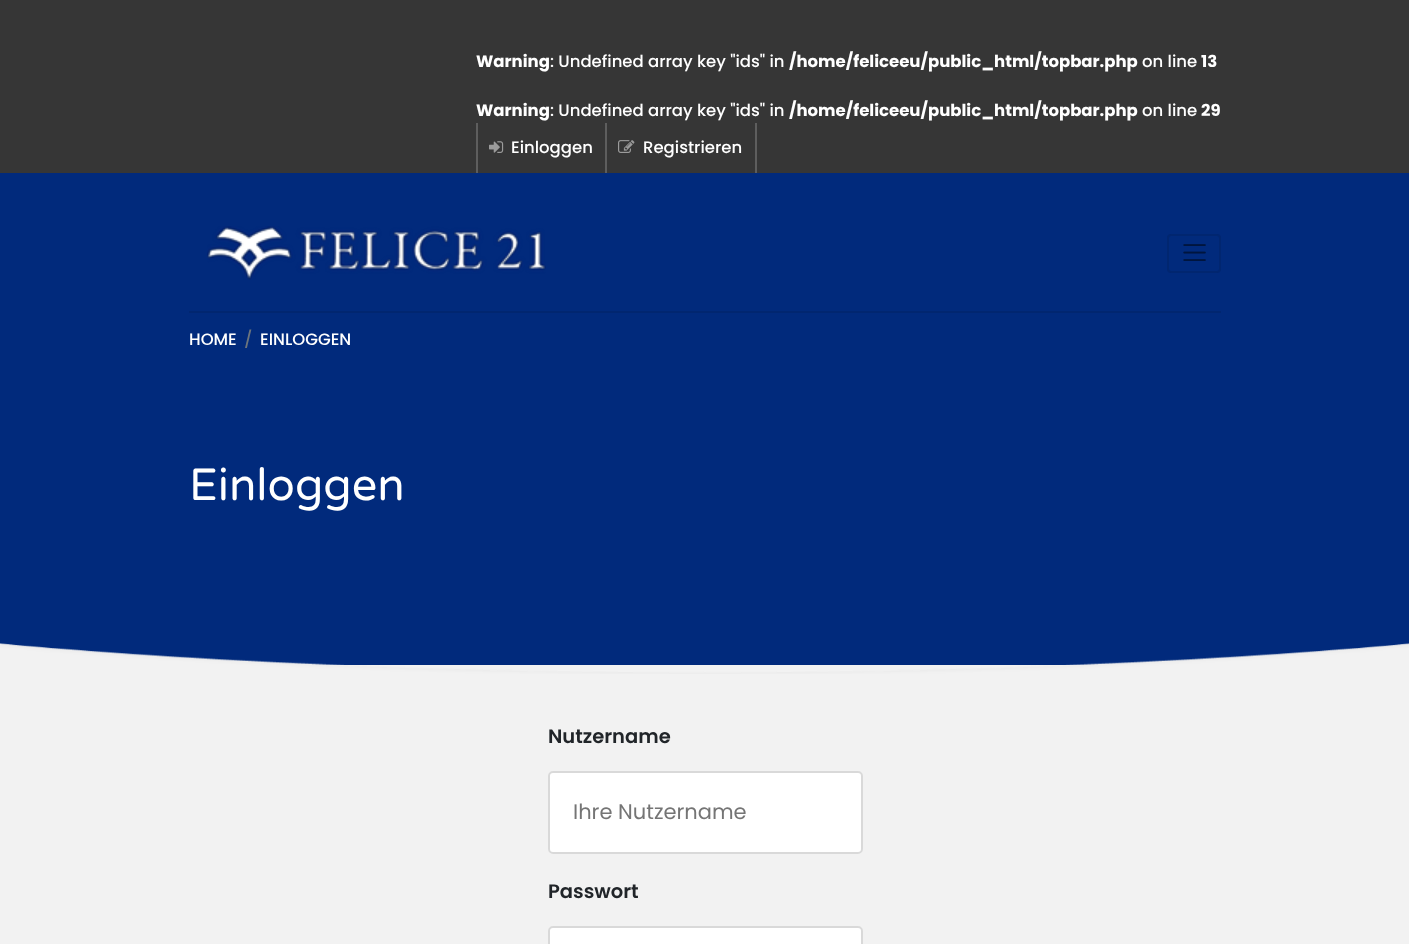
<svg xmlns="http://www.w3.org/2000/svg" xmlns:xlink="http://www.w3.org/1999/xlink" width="1409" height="944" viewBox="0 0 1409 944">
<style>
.cls-1{font:bold 16.5px Poppins;fill:#ffffff}
.cls-2{font:500 16.5px Poppins;fill:#ffffff}
.cls-3{font:500 16.5px Poppins;fill:#6c757d}
.cls-4{font:45px Varela Round;fill:#ffffff}
.cls-5{font:600 19.5px Poppins;fill:#212529}
.cls-6{font:21px Poppins;fill:#757575}
</style>
<rect width="100%" height="100%" fill="#f2f2f2"/>
<rect fill="#012a7c" x="0" y="173" width="1409" height="492"/>
<rect fill="#363636" x="0" y="0" width="1409" height="173"/>
<rect fill="#5e5e5e" x="476" y="123" width="2" height="50"/>
<image xlink:href="image0.png" x="489" y="141" width="15" height="12"/>
<rect fill="#5e5e5e" x="755" y="123" width="2" height="50"/>
<rect fill="#5e5e5e" x="605" y="123" width="2" height="50"/>
<image xlink:href="image1.png" x="618" y="140" width="17" height="13"/>
<rect fill="#012670" x="189" y="311" width="1032" height="2"/>
<image xlink:href="image2.png" x="207" y="226" width="339" height="54"/>
<rect fill="none" stroke="#012670" stroke-width="2" x="1168" y="235" width="52" height="37" rx="3"/>
<image xlink:href="image3.png" x="1183" y="244" width="23" height="17"/>
<image xlink:href="image4.png" x="0" y="643" width="1409" height="31"/>
<rect fill="#ffffff" x="548" y="771" width="315" height="83" rx="5"/>
<rect fill="none" stroke="#000000" stroke-opacity="0.15" stroke-width="2" x="549" y="772" width="313" height="81" rx="4"/>
<rect fill="#ffffff" x="548" y="926" width="315" height="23" rx="5"/>
<rect fill="none" stroke="#000000" stroke-opacity="0.15" stroke-width="2" x="549" y="927" width="313" height="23" rx="4"/>
<text class="cls-1" x="476" y="67">Warning</text>
<text class="cls-2" x="550" y="67">: Undefined array key "ids" in</text>
<text class="cls-1" x="789" y="67">/home/feliceeu/public_html/topbar.php</text>
<text class="cls-2" x="1142" y="67">on line</text>
<text class="cls-1" x="1201" y="67">13</text>
<text class="cls-1" x="476" y="116">Warning</text>
<text class="cls-2" x="550" y="116">: Undefined array key "ids" in</text>
<text class="cls-1" x="789" y="116">/home/feliceeu/public_html/topbar.php</text>
<text class="cls-2" x="1142" y="116">on line</text>
<text class="cls-1" x="1201" y="116">29</text>
<text class="cls-2" x="511" y="153">Einloggen</text>
<text class="cls-2" x="643" y="153">Registrieren</text>
<text class="cls-2" x="189" y="345">HOME</text>
<text class="cls-3" x="244" y="345">/</text>
<text class="cls-2" x="260" y="345">EINLOGGEN</text>
<text class="cls-4" x="189" y="500">Einloggen</text>
<text class="cls-5" x="548" y="743">Nutzername</text>
<text class="cls-6" x="573" y="819">Ihre Nutzername</text>
<text class="cls-5" x="548" y="898">Passwort</text>
</svg>
